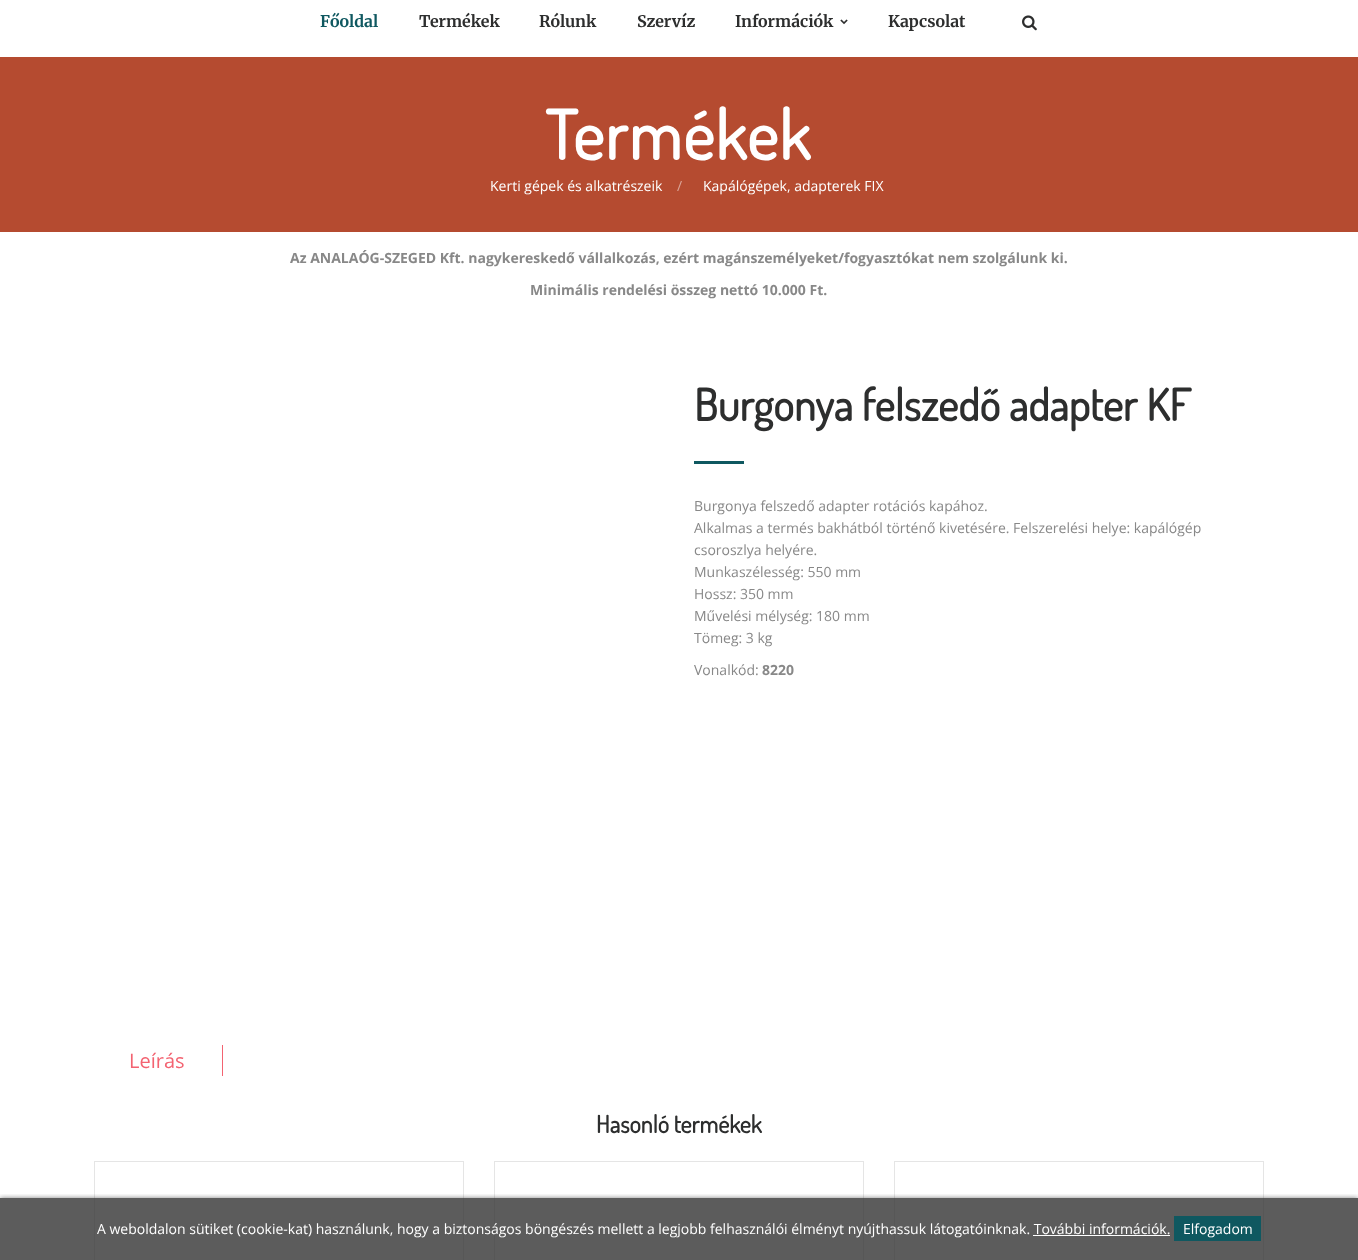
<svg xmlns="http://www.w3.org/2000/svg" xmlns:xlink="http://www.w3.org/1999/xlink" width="1358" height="1260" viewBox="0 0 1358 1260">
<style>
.cls-1{font:bold 16px Merriweather;fill:#0f5860}
.cls-2{font:bold 16px Merriweather;fill:#2d2e2e}
.cls-3{font:bold 68px Dosis;letter-spacing:1.25px;fill:#ffffff}
.cls-4{font:14px Open Sans;fill:#ffffff}
.cls-5{font:14px Open Sans;fill:#daa598}
.cls-6{font:bold 14px Open Sans;fill:#888888}
.cls-7{font:bold 44px Dosis;fill:#2d2e2e}
.cls-8{font:14px Open Sans;fill:#888888}
.cls-9{font:20px Open Sans;fill:#f36371}
.cls-10{font:bold 24px Dosis;fill:#2d2e2e}
</style>
<defs>
<clipPath id="clip1"><rect x="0" y="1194" width="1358" height="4"/></clipPath>
</defs>
<rect width="100%" height="100%" fill="#ffffff"/>
<image xlink:href="image0.png" x="840" y="19" width="8" height="6"/>
<image xlink:href="image1.png" x="1022" y="15" width="15" height="16"/>
<rect fill="#b54b30" x="0" y="57" width="1358" height="175"/>
<rect fill="#0f5860" x="694" y="461" width="50" height="3"/>
<rect fill="#f36371" x="222" y="1045" width="1" height="31"/>
<rect fill="none" stroke="#e5e5e5" x="94.5" y="1161.5" width="369" height="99"/>
<rect fill="none" stroke="#e5e5e5" x="494.5" y="1161.5" width="369" height="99"/>
<rect fill="none" stroke="#e5e5e5" x="894.5" y="1161.5" width="369" height="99"/>
<g clip-path="url(#clip1)">
<rect fill="#000000" fill-opacity="0.5" filter="blur(2.5px)" x="0" y="1198" width="1358" height="62"/>
</g>
<rect fill="#333333" fill-opacity="0.8" x="0" y="1198" width="1358" height="62"/>
<rect fill="#0f5860" x="1174" y="1216" width="87" height="25"/>
<rect fill="#ffffff" x="1033" y="1235" width="137" height="1"/>
<text class="cls-1" x="320" y="27">Főoldal</text>
<text class="cls-2" x="419" y="27">Termékek</text>
<text class="cls-2" x="539" y="27">Rólunk</text>
<text class="cls-2" x="637" y="27">Szervíz</text>
<text class="cls-2" x="735" y="27">Információk</text>
<text class="cls-2" x="888" y="27">Kapcsolat</text>
<text class="cls-3" x="545" y="160">Termékek</text>
<text class="cls-4" x="490" y="191">Kerti gépek és alkatrészeik</text>
<text class="cls-5" x="677" y="191">/</text>
<text class="cls-4" x="703" y="191">Kapálógépek, adapterek FIX</text>
<text class="cls-6" x="290" y="263">Az ANALAÓG-SZEGED Kft. nagykereskedő vállalkozás, ezért magánszemélyeket/fogyasztókat nem szolgálunk ki.</text>
<text class="cls-6" x="530" y="295">Minimális rendelési összeg nettó 10.000 Ft.</text>
<text class="cls-7" x="694" y="421">Burgonya felszedő adapter KF</text>
<text class="cls-8"><tspan x="694" y="511">Burgonya felszedő adapter rotációs kapához.</tspan><tspan x="694" y="533">Alkalmas a termés bakhátból történő kivetésére. Felszerelési helye: kapálógép</tspan><tspan x="694" y="555">csoroszlya helyére.</tspan><tspan x="694" y="577">Munkaszélesség: 550 mm</tspan><tspan x="694" y="599">Hossz: 350 mm</tspan><tspan x="694" y="621">Művelési mélység: 180 mm</tspan><tspan x="694" y="643">Tömeg: 3 kg</tspan></text>
<text class="cls-8" x="694" y="675">Vonalkód:</text>
<text class="cls-6" x="762" y="675">8220</text>
<text class="cls-9" x="129" y="1068">Leírás</text>
<text class="cls-10" x="596" y="1133">Hasonló termékek</text>
<text class="cls-4" x="97" y="1234">A weboldalon sütiket (cookie-kat) használunk, hogy a biztonságos böngészés mellett a legjobb felhasználói élményt nyújthassuk látogatóinknak. További információk.</text>
<text class="cls-4" x="1183" y="1234">Elfogadom</text>
</svg>
